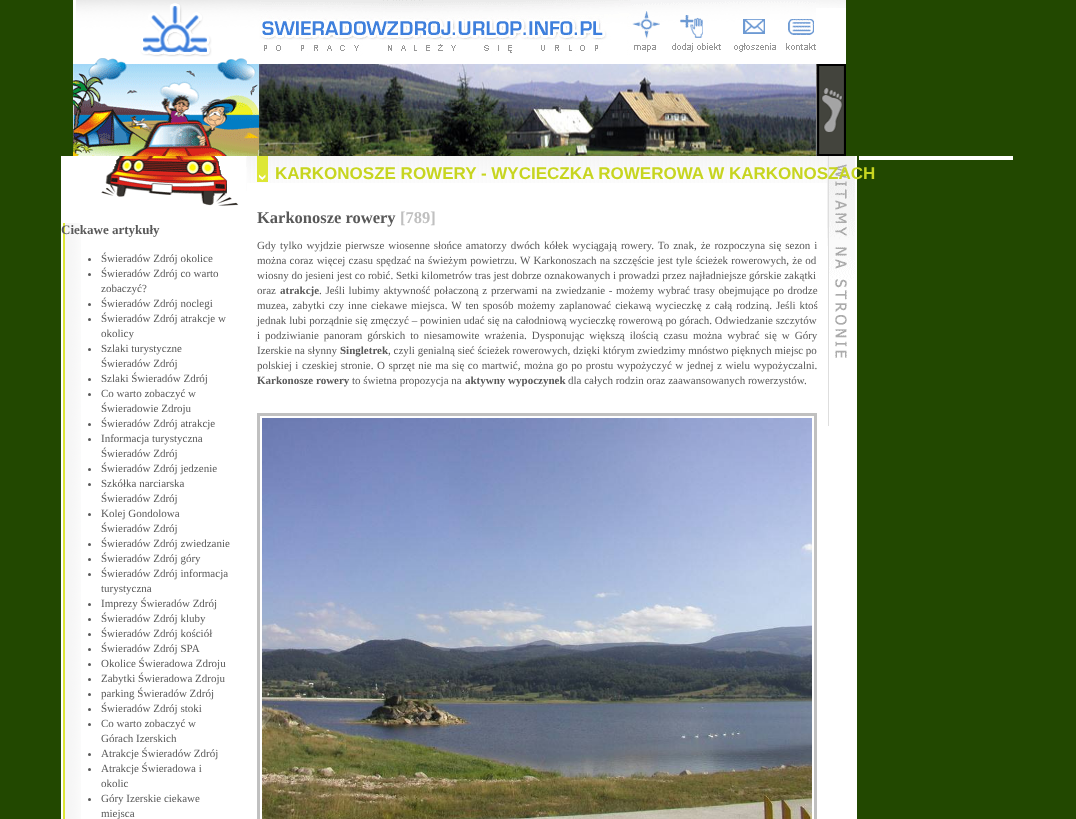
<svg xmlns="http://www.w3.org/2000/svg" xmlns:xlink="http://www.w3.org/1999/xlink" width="1076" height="819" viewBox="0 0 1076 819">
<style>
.cls-1{font:bold 13px Liberation Serif;fill:#595959}
.cls-2{font:11px Liberation Serif;fill:#595959}
.cls-3{font:bold 17px Liberation Sans;fill:#c7d520}
.cls-4{font:bold 16.5px Liberation Serif;fill:#595959}
.cls-5{font:bold 16.5px Liberation Serif;fill:#c0c0c0}
.cls-6{font:bold 11px Liberation Serif;fill:#595959}
</style>
<rect width="100%" height="100%" fill="#224800"/>
<rect fill="#ffffff" x="859" y="156" width="154" height="4"/>
<image xlink:href="image0.png" x="73" y="0" width="186" height="63"/>
<image xlink:href="image1.png" x="259" y="0" width="372" height="63"/>
<image xlink:href="image2.png" x="631" y="0" width="185" height="63"/>
<rect fill="#ffffff" x="816" y="8" width="30" height="55"/>
<image xlink:href="image3.png" x="816" y="0" width="30" height="8"/>
<image xlink:href="image4.png" x="73" y="63" width="186" height="93"/>
<rect fill="#ffffff" x="259" y="63" width="557" height="1"/>
<image xlink:href="image5.png" x="259" y="64" width="557" height="92"/>
<image xlink:href="image6.png" x="816" y="63" width="30" height="93"/>
<rect fill="#ffffff" x="827" y="426" width="30" height="393"/>
<image xlink:href="image7.png" x="827" y="156" width="30" height="270"/>
<rect fill="#ffffff" x="61" y="156" width="186" height="663"/>
<image xlink:href="image8.png" x="101" y="156" width="146" height="50"/>
<image xlink:href="image9.png" x="63" y="223" width="18" height="596"/>
<circle fill="#595959" cx="89.5" cy="259.5" r="1.5"/>
<circle fill="#595959" cx="89.5" cy="274.5" r="1.5"/>
<circle fill="#595959" cx="89.5" cy="304.5" r="1.5"/>
<circle fill="#595959" cx="89.5" cy="319.5" r="1.5"/>
<circle fill="#595959" cx="89.5" cy="349.5" r="1.5"/>
<circle fill="#595959" cx="89.5" cy="379.5" r="1.5"/>
<circle fill="#595959" cx="89.5" cy="394.5" r="1.5"/>
<circle fill="#595959" cx="89.5" cy="424.5" r="1.5"/>
<circle fill="#595959" cx="89.5" cy="439.5" r="1.5"/>
<circle fill="#595959" cx="89.5" cy="469.5" r="1.5"/>
<circle fill="#595959" cx="89.5" cy="484.5" r="1.5"/>
<circle fill="#595959" cx="89.5" cy="514.5" r="1.5"/>
<circle fill="#595959" cx="89.5" cy="544.5" r="1.5"/>
<circle fill="#595959" cx="89.5" cy="559.5" r="1.5"/>
<circle fill="#595959" cx="89.5" cy="574.5" r="1.5"/>
<circle fill="#595959" cx="89.5" cy="604.5" r="1.5"/>
<circle fill="#595959" cx="89.5" cy="619.5" r="1.5"/>
<circle fill="#595959" cx="89.5" cy="634.5" r="1.5"/>
<circle fill="#595959" cx="89.5" cy="649.5" r="1.5"/>
<circle fill="#595959" cx="89.5" cy="664.5" r="1.5"/>
<circle fill="#595959" cx="89.5" cy="679.5" r="1.5"/>
<circle fill="#595959" cx="89.5" cy="694.5" r="1.5"/>
<circle fill="#595959" cx="89.5" cy="709.5" r="1.5"/>
<circle fill="#595959" cx="89.5" cy="724.5" r="1.5"/>
<circle fill="#595959" cx="89.5" cy="754.5" r="1.5"/>
<circle fill="#595959" cx="89.5" cy="769.5" r="1.5"/>
<circle fill="#595959" cx="89.5" cy="799.5" r="1.5"/>
<rect fill="#ffffff" x="247" y="183" width="580" height="636"/>
<image xlink:href="image10.png" x="247" y="156" width="580" height="27"/>
<image xlink:href="image11.png" x="257" y="156" width="11" height="26"/>
<rect fill="none" stroke="#c0c0c0" stroke-width="3" x="258.5" y="414.5" width="557" height="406"/>
<image xlink:href="image12.png" x="262" y="418" width="550" height="401"/>
<text class="cls-1" x="61" y="234">Ciekawe artykuły</text>
<text class="cls-2"><tspan x="101" y="262">Świeradów Zdrój okolice</tspan><tspan x="101" y="277">Świeradów Zdrój co warto</tspan><tspan x="101" y="292">zobaczyć?</tspan><tspan x="101" y="307">Świeradów Zdrój noclegi</tspan><tspan x="101" y="322">Świeradów Zdrój atrakcje w</tspan><tspan x="101" y="337">okolicy</tspan><tspan x="101" y="352">Szlaki turystyczne</tspan><tspan x="101" y="367">Świeradów Zdrój</tspan><tspan x="101" y="382">Szlaki Świeradów Zdrój</tspan><tspan x="101" y="397">Co warto zobaczyć w</tspan><tspan x="101" y="412">Świeradowie Zdroju</tspan><tspan x="101" y="427">Świeradów Zdrój atrakcje</tspan><tspan x="101" y="442">Informacja turystyczna</tspan><tspan x="101" y="457">Świeradów Zdrój</tspan><tspan x="101" y="472">Świeradów Zdrój jedzenie</tspan><tspan x="101" y="487">Szkółka narciarska</tspan><tspan x="101" y="502">Świeradów Zdrój</tspan><tspan x="101" y="517">Kolej Gondolowa</tspan><tspan x="101" y="532">Świeradów Zdrój</tspan><tspan x="101" y="547">Świeradów Zdrój zwiedzanie</tspan><tspan x="101" y="562">Świeradów Zdrój góry</tspan><tspan x="101" y="577">Świeradów Zdrój informacja</tspan><tspan x="101" y="592">turystyczna</tspan><tspan x="101" y="607">Imprezy Świeradów Zdrój</tspan><tspan x="101" y="622">Świeradów Zdrój kluby</tspan><tspan x="101" y="637">Świeradów Zdrój kościół</tspan><tspan x="101" y="652">Świeradów Zdrój SPA</tspan><tspan x="101" y="667">Okolice Świeradowa Zdroju</tspan><tspan x="101" y="682">Zabytki Świeradowa Zdroju</tspan><tspan x="101" y="697">parking Świeradów Zdrój</tspan><tspan x="101" y="712">Świeradów Zdrój stoki</tspan><tspan x="101" y="727">Co warto zobaczyć w</tspan><tspan x="101" y="742">Górach Izerskich</tspan><tspan x="101" y="757">Atrakcje Świeradów Zdrój</tspan><tspan x="101" y="772">Atrakcje Świeradowa i</tspan><tspan x="101" y="787">okolic</tspan><tspan x="101" y="802">Góry Izerskie ciekawe</tspan><tspan x="101" y="817">miejsca</tspan></text>
<text class="cls-3" x="275" y="179">KARKONOSZE ROWERY - WYCIECZKA ROWEROWA W KARKONOSZACH</text>
<text class="cls-4" x="257" y="223">Karkonosze rowery</text>
<text class="cls-5" x="400" y="223">[789]</text>
<text class="cls-2"><tspan x="257" y="249" word-spacing="1.2">Gdy tylko wyjdzie pierwsze wiosenne słońce amatorzy dwóch kółek wyciągają rowery. To znak, że rozpoczyna się sezon i</tspan><tspan x="257" y="264" word-spacing="0.5">można coraz więcej czasu spędzać na świeżym powietrzu. W Karkonoszach na szczęście jest tyle ścieżek rowerowych, że od</tspan><tspan x="257" y="279">wiosny do jesieni jest co robić. Setki kilometrów tras jest dobrze oznakowanych i prowadzi przez najładniejsze górskie zakątki</tspan><tspan x="257" y="294">oraz</tspan></text>
<text class="cls-6" x="280" y="294">atrakcje</text>
<text class="cls-2" x="319" y="294" word-spacing="0.9">. Jeśli lubimy aktywność połaczoną z przerwami na zwiedzanie - możemy wybrać trasy obejmujące po drodze</text>
<text class="cls-2"><tspan x="257" y="309" word-spacing="1.25">muzea, zabytki czy inne ciekawe miejsca. W ten sposób możemy zaplanować ciekawą wycieczkę z całą rodziną. Jeśli ktoś</tspan><tspan x="257" y="324" word-spacing="0.1">jednak lubi porządnie się zmęczyć – powinien udać się na całodniową wycieczkę rowerową po górach. Odwiedzanie szczytów</tspan><tspan x="257" y="339" word-spacing="2.25">i podziwianie panoram górskich to niesamowite wrażenia. Dysponując większą ilością czasu można wybrać się w Góry</tspan><tspan x="257" y="354">Izerskie na słynny</tspan></text>
<text class="cls-6" x="340" y="354">Singletrek</text>
<text class="cls-2" x="388" y="354">, czyli genialną sieć ścieżek rowerowych, dzięki którym zwiedzimy mnóstwo pięknych miejsc po</text>
<text class="cls-2" x="257" y="369" word-spacing="0.75">polskiej i czeskiej stronie. O sprzęt nie ma się co martwić, można go po prostu wypożyczyć w jednej z wielu wypożyczalni.</text>
<text class="cls-6" x="257" y="384">Karkonosze rowery</text>
<text class="cls-2" x="352" y="384">to świetna propozycja na</text>
<text class="cls-6" x="465" y="384">aktywny wypoczynek</text>
<text class="cls-2" x="568" y="384">dla całych rodzin oraz zaawansowanych rowerzystów.</text>
</svg>
